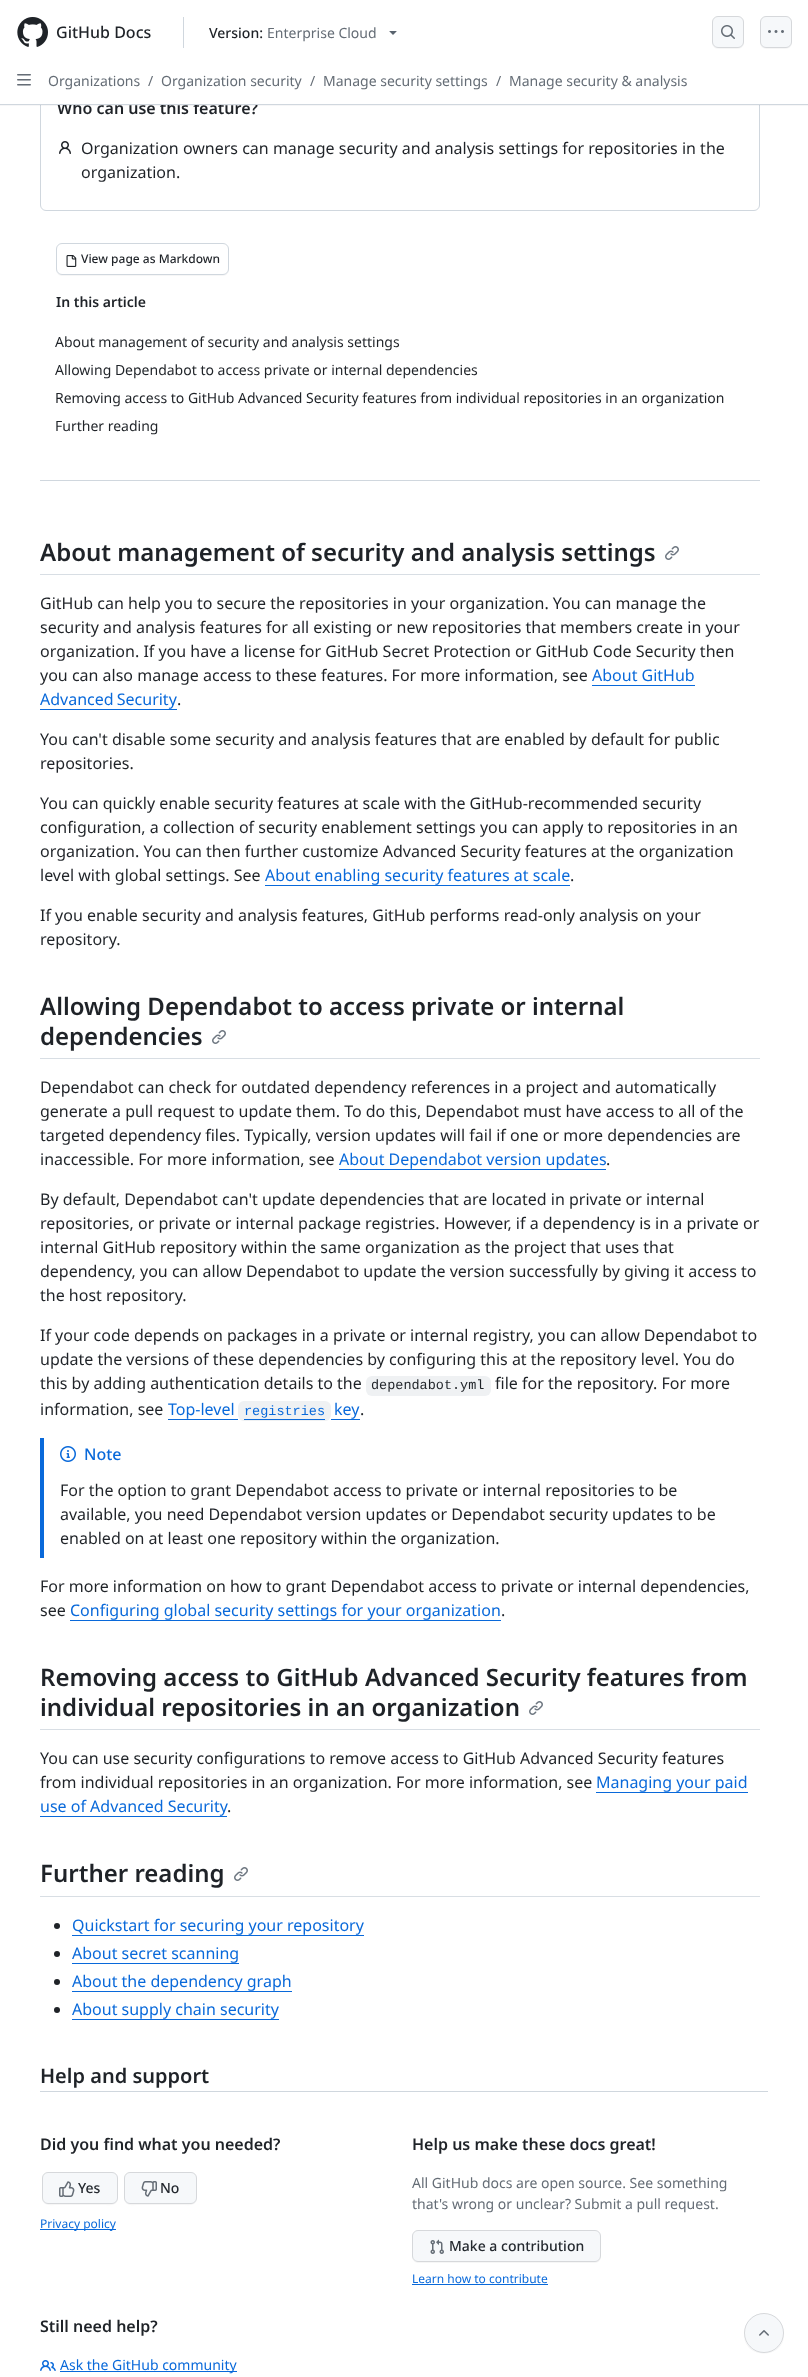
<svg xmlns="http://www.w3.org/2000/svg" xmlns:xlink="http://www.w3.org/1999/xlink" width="808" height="2377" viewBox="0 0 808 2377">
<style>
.cls-1{font:500 16px Noto Sans;fill:#1f2328}
.cls-2{font:500 14px Noto Sans;fill:#1f2328}
.cls-3{font:14px Noto Sans;fill:#656d76}
.cls-4{font:600 16px Noto Sans;fill:#1f2328}
.cls-5{font:16px Noto Sans;fill:#1f2328}
.cls-6{font:500 12px Noto Sans;fill:#1f2328}
.cls-7{font:600 14px Noto Sans;fill:#1f2328}
.cls-8{font:14px Noto Sans;fill:#1f2328}
.cls-9{font:600 24px Noto Sans;fill:#1f2328}
.cls-10{font:16px Noto Sans;fill:#0969da}
.cls-11{font:13.5px Liberation Mono;fill:#1f2328}
.cls-12{font:13.5px Liberation Mono;fill:#0969da}
.cls-13{font:500 16px Noto Sans;fill:#0969da}
.cls-14{font:600 20px Noto Sans;fill:#1f2328}
.cls-15{font:500 14px Noto Sans;fill:#24292f}
.cls-16{font:12px Noto Sans;fill:#0969da}
.cls-17{font:14px Noto Sans;fill:#0969da}
</style>
<rect width="100%" height="100%" fill="#ffffff"/>
<rect fill="none" stroke="#d0d7de" x="40.5" y="79.5" width="719" height="131" rx="5.5"/>
<rect fill="#1f2328" fill-opacity="0.04" x="0" y="105" width="808" height="1"/>
<image xlink:href="image0.png" x="17" y="17" width="31" height="30"/>
<rect fill="#d0d7de" x="183" y="17" width="1" height="31"/>
<image xlink:href="image1.png" x="389" y="31" width="8" height="4"/>
<path fill="#f6f6f6" d="M712 42C712 48.5 716 49 721.5 49H734.5C740 49 744 48.5 744 42C744 45.5 741.5 48 738 48H718C714.5 48 712 45.5 712 42Z"/>
<rect fill="#f6f8fa" stroke="#d6d8db" x="712.5" y="16.5" width="31" height="31" rx="5.5"/>
<image xlink:href="image2.png" x="721" y="25" width="14" height="14"/>
<path fill="#f6f6f6" d="M760 42C760 48.5 764 49 769.5 49H782.5C788 49 792 48.5 792 42C792 45.5 789.5 48 786 48H766C762.5 48 760 45.5 760 42Z"/>
<rect fill="#f6f8fa" stroke="#d6d8db" x="760.5" y="16.5" width="31" height="31" rx="5.5"/>
<image xlink:href="image3.png" x="768" y="30" width="16" height="3"/>
<image xlink:href="image4.png" x="17" y="74" width="14" height="12"/>
<image xlink:href="image5.png" x="59" y="141" width="12" height="13"/>
<rect fill="#d0d7de" x="40" y="480" width="720" height="1"/>
<path fill="#f6f6f6" d="M56 269V270C56 273 59 276 62 276H223C226 276 229 273 229 270V269C229 272 226 275 223 275H62C59 275 56 272 56 269Z"/>
<rect fill="none" stroke="#d0d7de" x="56.5" y="243.5" width="172" height="31" rx="5.5"/>
<image xlink:href="image6.png" x="66" y="255" width="11" height="12"/>
<rect fill="#d8dee4" x="40" y="574" width="720" height="1"/>
<image xlink:href="image7.png" x="665" y="546" width="14" height="14"/>
<rect fill="#0969da" x="592" y="685" width="103" height="1"/>
<rect fill="#0969da" x="40" y="709" width="137" height="1"/>
<rect fill="#0969da" x="265" y="885" width="305" height="1"/>
<rect fill="#d8dee4" x="40" y="1058" width="720" height="1"/>
<image xlink:href="image7.png" x="212" y="1030" width="14" height="14"/>
<rect fill="#0969da" x="339" y="1169" width="267" height="1"/>
<rect fill="#eff1f3" x="366" y="1376" width="125" height="20" rx="6"/>
<rect fill="#0969da" x="168" y="1419" width="70" height="1"/>
<rect fill="#eff1f3" x="238" y="1401" width="93" height="20" rx="6"/>
<rect fill="#0969da" x="244" y="1419" width="81" height="1"/>
<rect fill="#0969da" x="331" y="1419" width="29" height="1"/>
<rect fill="#0969da" x="40" y="1438" width="4" height="120"/>
<image xlink:href="image8.png" x="60" y="1446" width="16" height="16"/>
<rect fill="#0969da" x="70" y="1620" width="431" height="1"/>
<rect fill="#d8dee4" x="40" y="1729" width="720" height="1"/>
<image xlink:href="image7.png" x="529" y="1701" width="14" height="14"/>
<rect fill="#0969da" x="596" y="1792" width="152" height="1"/>
<rect fill="#0969da" x="40" y="1816" width="187" height="1"/>
<rect fill="#d8dee4" x="40" y="1896" width="720" height="1"/>
<image xlink:href="image7.png" x="234" y="1867" width="14" height="14"/>
<circle fill="#1f2328" cx="57" cy="1926" r="3"/>
<rect fill="#0969da" x="72" y="1935" width="292" height="1"/>
<circle fill="#1f2328" cx="57" cy="1954" r="3"/>
<rect fill="#0969da" x="72" y="1963" width="167" height="1"/>
<circle fill="#1f2328" cx="57" cy="1982" r="3"/>
<rect fill="#0969da" x="72" y="1991" width="220" height="1"/>
<circle fill="#1f2328" cx="57" cy="2010" r="3"/>
<rect fill="#0969da" x="72" y="2019" width="207" height="1"/>
<rect fill="#d0d7de" x="40" y="2091" width="728" height="1"/>
<path fill="#f6f6f6" d="M42 2198C42 2207 52 2205 59 2205H101C108 2205 118 2207 118 2198C118 2201 115 2204 112 2204H48C45 2204 42 2201 42 2198Z"/>
<rect fill="#f6f8fa" stroke="#d6d8db" x="42.5" y="2172.5" width="75" height="31" rx="5.5"/>
<image xlink:href="image9.png" x="59" y="2181" width="16" height="16"/>
<path fill="#f6f6f6" d="M124 2198C124 2207 134 2205 140 2205H181C187 2205 197 2207 197 2198C197 2201 194 2204 191 2204H130C127 2204 124 2201 124 2198Z"/>
<rect fill="#f6f8fa" stroke="#d6d8db" x="124.5" y="2172.5" width="72" height="31" rx="5.5"/>
<image xlink:href="image10.png" x="141" y="2181" width="16" height="16"/>
<rect fill="#0969da" x="40" y="2229" width="76" height="1"/>
<path fill="#f6f6f6" d="M412 2256V2257C412 2260 415 2263 418 2263H595C598 2263 601 2260 601 2257V2256C601 2259 598 2262 595 2262H418C415 2262 412 2259 412 2256Z"/>
<rect fill="#f6f8fa" stroke="#d6d8db" x="412.5" y="2230.5" width="188" height="31" rx="5.5"/>
<image xlink:href="image11.png" x="430" y="2239" width="14" height="15"/>
<rect fill="#0969da" x="412" y="2284" width="136" height="1"/>
<image xlink:href="image12.png" x="40" y="2360" width="16" height="11"/>
<rect fill="#0969da" x="60" y="2371" width="177" height="1"/>
<path fill="#f6f6f6" d="M784 2334C783 2359 745 2359 744 2334C743 2360 785 2360 784 2334Z"/>
<circle fill="#f6f8fa" cx="764" cy="2333" r="20"/>
<circle fill="none" stroke="#1f2328" stroke-opacity="0.15" cx="764" cy="2333" r="19.5"/>
<image xlink:href="image13.png" x="759" y="2330" width="10" height="6"/>
<text class="cls-1" x="56" y="38">GitHub Docs</text>
<text class="cls-2" x="209" y="38">Version:</text>
<text class="cls-3" x="267" y="38">Enterprise Cloud</text>
<text class="cls-4" x="57" y="114">Who can use this feature?</text>
<rect fill="#ffffff" x="40" y="79" width="720" height="25"/>
<text class="cls-3" x="509" y="86">Manage security &amp; analysis</text>
<text class="cls-3" x="496" y="86">/</text>
<text class="cls-3" x="323" y="86">Manage security settings</text>
<text class="cls-3" x="310" y="86">/</text>
<text class="cls-3" x="161" y="86">Organization security</text>
<text class="cls-3" x="148" y="86">/</text>
<text class="cls-3" x="48" y="86">Organizations</text>
<rect fill="#d0d7de" x="0" y="104" width="808" height="1"/>
<text class="cls-5"><tspan x="81" y="154">Organization owners can manage security and analysis settings for repositories in the</tspan><tspan x="81" y="178">organization.</tspan></text>
<text class="cls-6" x="81" y="263">View page as Markdown</text>
<text class="cls-7" x="56" y="307">In this article</text>
<text class="cls-8" x="55" y="347">About management of security and analysis settings</text>
<text class="cls-8" x="55" y="375">Allowing Dependabot to access private or internal dependencies</text>
<text class="cls-8" x="55" y="403">Removing access to GitHub Advanced Security features from individual repositories in an organization</text>
<text class="cls-8" x="55" y="431">Further reading</text>
<text class="cls-9" x="40" y="561">About management of security and analysis settings</text>
<text class="cls-5"><tspan x="40" y="609">GitHub can help you to secure the repositories in your organization. You can manage the</tspan><tspan x="40" y="633">security and analysis features for all existing or new repositories that members create in your</tspan><tspan x="40" y="657">organization. If you have a license for GitHub Secret Protection or GitHub Code Security then</tspan><tspan x="40" y="681">you can also manage access to these features. For more information, see</tspan></text>
<text class="cls-10" x="592" y="681">About GitHub</text>
<text class="cls-10" x="40" y="705" word-spacing="-1">Advanced Security</text>
<text class="cls-5" x="177" y="705">.</text>
<text class="cls-5"><tspan x="40" y="745">You can't disable some security and analysis features that are enabled by default for public</tspan><tspan x="40" y="769">repositories.</tspan></text>
<text class="cls-5"><tspan x="40" y="809">You can quickly enable security features at scale with the GitHub-recommended security</tspan><tspan x="40" y="833">configuration, a collection of security enablement settings you can apply to repositories in an</tspan><tspan x="40" y="857">organization. You can then further customize Advanced Security features at the organization</tspan><tspan x="40" y="881">level with global settings. See</tspan></text>
<text class="cls-10" x="265" y="881">About enabling security features at scale</text>
<text class="cls-5" x="570" y="881">.</text>
<text class="cls-5"><tspan x="40" y="921">If you enable security and analysis features, GitHub performs read-only analysis on your</tspan><tspan x="40" y="945">repository.</tspan></text>
<text class="cls-9"><tspan x="40" y="1015">Allowing Dependabot to access private or internal</tspan><tspan x="40" y="1045">dependencies</tspan></text>
<text class="cls-5"><tspan x="40" y="1093">Dependabot can check for outdated dependency references in a project and automatically</tspan><tspan x="40" y="1117">generate a pull request to update them. To do this, Dependabot must have access to all of the</tspan><tspan x="40" y="1141">targeted dependency files. Typically, version updates will fail if one or more dependencies are</tspan><tspan x="40" y="1165">inaccessible. For more information, see</tspan></text>
<text class="cls-10" x="339" y="1165">About Dependabot version updates</text>
<text class="cls-5" x="606" y="1165">.</text>
<text class="cls-5"><tspan x="40" y="1205">By default, Dependabot can't update dependencies that are located in private or internal</tspan><tspan x="40" y="1229">repositories, or private or internal package registries. However, if a dependency is in a private or</tspan><tspan x="40" y="1253">internal GitHub repository within the same organization as the project that uses that</tspan><tspan x="40" y="1277">dependency, you can allow Dependabot to update the version successfully by giving it access to</tspan><tspan x="40" y="1301">the host repository.</tspan></text>
<text class="cls-5"><tspan x="40" y="1341">If your code depends on packages in a private or internal registry, you can allow Dependabot to</tspan><tspan x="40" y="1365">update the versions of these dependencies by configuring this at the repository level. You do</tspan><tspan x="40" y="1389">this by adding authentication details to the</tspan></text>
<text class="cls-11" x="371" y="1389">dependabot.yml</text>
<text class="cls-5" x="495" y="1389">file for the repository. For more</text>
<text class="cls-5" x="40" y="1415">information, see</text>
<text class="cls-10" x="168" y="1415">Top-level</text>
<text class="cls-12" x="244" y="1415">registries</text>
<text class="cls-10" x="334" y="1415">key</text>
<text class="cls-5" x="360" y="1415">.</text>
<text class="cls-13" x="84" y="1460">Note</text>
<text class="cls-5"><tspan x="60" y="1496">For the option to grant Dependabot access to private or internal repositories to be</tspan><tspan x="60" y="1520">available, you need Dependabot version updates or Dependabot security updates to be</tspan><tspan x="60" y="1544">enabled on at least one repository within the organization.</tspan></text>
<text class="cls-5"><tspan x="40" y="1592">For more information on how to grant Dependabot access to private or internal dependencies,</tspan><tspan x="40" y="1616">see</tspan></text>
<text class="cls-10" x="70" y="1616">Configuring global security settings for your organization</text>
<text class="cls-5" x="501" y="1616">.</text>
<text class="cls-9"><tspan x="40" y="1686">Removing access to GitHub Advanced Security features from</tspan><tspan x="40" y="1716">individual repositories in an organization</tspan></text>
<text class="cls-5"><tspan x="40" y="1764">You can use security configurations to remove access to GitHub Advanced Security features</tspan><tspan x="40" y="1788">from individual repositories in an organization. For more information, see</tspan></text>
<text class="cls-10" x="596" y="1788">Managing your paid</text>
<text class="cls-10" x="40" y="1812">use of Advanced Security</text>
<text class="cls-5" x="227" y="1812">.</text>
<text class="cls-9" x="40" y="1882">Further reading</text>
<text class="cls-10"><tspan x="72" y="1931">Quickstart for securing your repository</tspan><tspan x="72" y="1959">About secret scanning</tspan><tspan x="72" y="1987">About the dependency graph</tspan><tspan x="72" y="2015">About supply chain security</tspan></text>
<text class="cls-14" x="40" y="2083">Help and support</text>
<text class="cls-4" x="40" y="2150">Did you find what you needed?</text>
<text class="cls-15" x="78" y="2193">Yes</text>
<text class="cls-15" x="160" y="2193">No</text>
<text class="cls-16" x="40" y="2228">Privacy policy</text>
<text class="cls-4" x="412" y="2150">Help us make these docs great!</text>
<text class="cls-3"><tspan x="412" y="2188">All GitHub docs are open source. See something</tspan><tspan x="412" y="2209">that's wrong or unclear? Submit a pull request.</tspan></text>
<text class="cls-15" x="449" y="2251">Make a contribution</text>
<text class="cls-16" x="412" y="2283">Learn how to contribute</text>
<text class="cls-4" x="40" y="2332">Still need help?</text>
<text class="cls-17" x="60" y="2370">Ask the GitHub community</text>
</svg>
